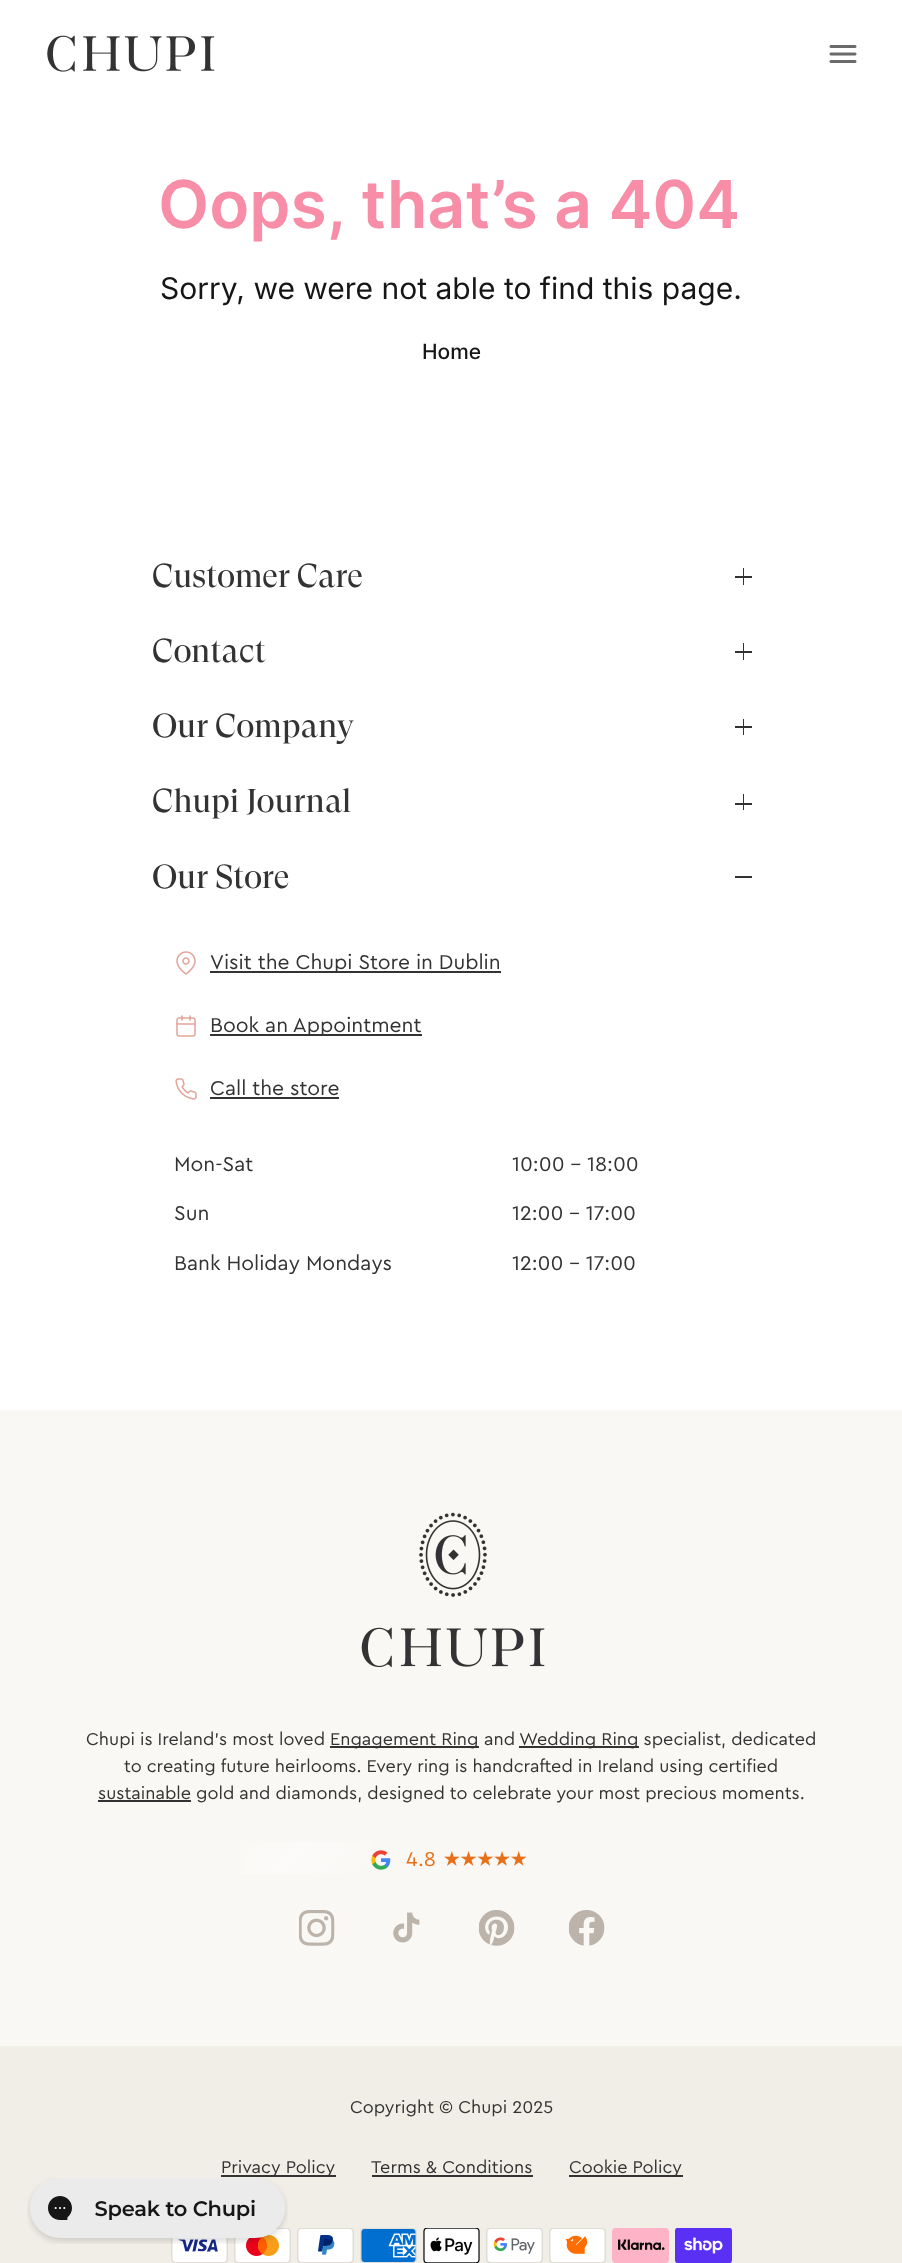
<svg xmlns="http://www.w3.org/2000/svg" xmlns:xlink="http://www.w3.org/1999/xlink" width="902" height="2263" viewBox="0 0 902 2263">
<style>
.cls-1{font:600 66px Inter;fill:#f78da7}
.cls-2{font:30px Inter;fill:#161616}
.cls-3{font:500 21px Inter;fill:#161616}
.cls-4{font:33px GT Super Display;fill:#333333}
.cls-5{font:21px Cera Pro;fill:#333333}
.cls-6{font:18px Cera Pro;fill:#333333}
.cls-7{font:21px Cera Pro;fill:#e7711b}
</style>
<defs>
<linearGradient id="g1" gradientUnits="userSpaceOnUse" x1="242" y1="1809" x2="339" y2="1906"><stop offset="0" stop-color="#ffffff" stop-opacity="0"/><stop offset="0.5" stop-color="#ffffff" stop-opacity="0.4"/><stop offset="1" stop-color="#ffffff" stop-opacity="0"/></linearGradient>
</defs>
<rect width="100%" height="100%" fill="#ffffff"/>
<image xlink:href="image0.png" x="47" y="35" width="168" height="37"/>
<image xlink:href="image1.png" x="829" y="45" width="28" height="18"/>
<rect fill="#333333" x="735" y="576" width="17" height="2"/>
<rect fill="#333333" x="743" y="568" width="1" height="17"/>
<rect fill="#333333" x="735" y="651" width="17" height="2"/>
<rect fill="#333333" x="743" y="643" width="1" height="17"/>
<rect fill="#333333" x="735" y="726" width="17" height="2"/>
<rect fill="#333333" x="743" y="719" width="1" height="16"/>
<rect fill="#333333" x="735" y="803" width="17" height="2"/>
<rect fill="#333333" x="743" y="794" width="1" height="16"/>
<rect fill="#333333" x="735" y="876" width="17" height="2"/>
<image xlink:href="image2.png" x="176" y="951" width="20" height="24"/>
<rect fill="#333333" x="210" y="971" width="291" height="2"/>
<image xlink:href="image3.png" x="176" y="1015" width="20" height="22"/>
<rect fill="#333333" x="210" y="1034" width="212" height="2"/>
<image xlink:href="image4.png" x="175" y="1078" width="22" height="22"/>
<rect fill="#333333" x="210" y="1097" width="129" height="2"/>
<rect fill="#f9f8f5" x="0" y="1410" width="902" height="636"/>
<image xlink:href="image5.png" x="361" y="1512" width="184" height="156"/>
<rect fill="#333333" x="330" y="1746" width="149" height="2"/>
<rect fill="#333333" x="519" y="1746" width="120" height="2"/>
<rect fill="#333333" x="98" y="1800" width="93" height="2"/>
<image xlink:href="image6.png" x="371" y="1850" width="20" height="20"/>
<rect fill="url(#g1)" x="241" y="1842" width="131" height="32"/>
<image xlink:href="image7.png" x="444" y="1851" width="83" height="15"/>
<image xlink:href="image8.png" x="299" y="1910" width="36" height="36"/>
<image xlink:href="image9.png" x="393" y="1912" width="27" height="31"/>
<image xlink:href="image10.png" x="479" y="1910" width="36" height="36"/>
<image xlink:href="image11.png" x="569" y="1910" width="36" height="36"/>
<rect fill="#f1eee7" x="0" y="2046" width="902" height="217"/>
<rect fill="#333333" x="221" y="2175" width="115" height="2"/>
<rect fill="#333333" x="372" y="2175" width="161" height="2"/>
<rect fill="#333333" x="569" y="2175" width="114" height="2"/>
<image xlink:href="image12.png" x="171" y="2238" width="57" height="25"/>
<image xlink:href="image13.png" x="234" y="2228" width="57" height="35"/>
<image xlink:href="image14.png" x="297" y="2228" width="57" height="35"/>
<image xlink:href="image15.png" x="360" y="2228" width="57" height="35"/>
<image xlink:href="image16.png" x="423" y="2228" width="57" height="35"/>
<image xlink:href="image17.png" x="486" y="2228" width="57" height="35"/>
<image xlink:href="image18.png" x="549" y="2228" width="57" height="35"/>
<image xlink:href="image19.png" x="612" y="2228" width="57" height="35"/>
<image xlink:href="image20.png" x="675" y="2228" width="57" height="35"/>
<image xlink:href="image21.png" x="27" y="2178" width="261" height="66"/>
<text class="cls-1" x="158" y="228">Oops, that’s a 404</text>
<text class="cls-2" x="160" y="299">Sorry, we were not able to find this page.</text>
<text class="cls-3" x="422" y="359">Home</text>
<text class="cls-4" x="152" y="587">Customer Care</text>
<text class="cls-4" x="152" y="662">Contact</text>
<text class="cls-4" x="152" y="737">Our Company</text>
<text class="cls-4" x="152" y="812">Chupi Journal</text>
<text class="cls-4" x="152" y="888">Our Store</text>
<text class="cls-5" x="210" y="969">Visit the Chupi Store in Dublin</text>
<text class="cls-5" x="210" y="1032">Book an Appointment</text>
<text class="cls-5" x="210" y="1095">Call the store</text>
<text class="cls-5" x="174" y="1171">Mon-Sat</text>
<text class="cls-5" x="512" y="1171">10:00 – 18:00</text>
<text class="cls-5" x="174" y="1220">Sun</text>
<text class="cls-5" x="512" y="1220">12:00 – 17:00</text>
<text class="cls-5" x="174" y="1270">Bank Holiday Mondays</text>
<text class="cls-5" x="512" y="1270">12:00 – 17:00</text>
<text class="cls-6" x="86" y="1745">Chupi is Ireland’s most loved</text>
<text class="cls-6" x="330" y="1745">Engagement Ring</text>
<text class="cls-6" x="484" y="1745">and</text>
<text class="cls-6" x="519" y="1745">Wedding Ring specialist, dedicated</text>
<text class="cls-6" x="124" y="1772">to creating future heirlooms. Every ring is handcrafted in Ireland using certified</text>
<text class="cls-6" x="98" y="1799">sustainable gold and diamonds, designed to celebrate your most precious moments.</text>
<text class="cls-7" x="406" y="1866">4.8</text>
<text class="cls-6" x="350" y="2113">Copyright © Chupi 2025</text>
<text class="cls-6" x="221" y="2173">Privacy Policy</text>
<text class="cls-6" x="371" y="2173">Terms &amp; Conditions</text>
<text class="cls-6" x="569" y="2173">Cookie Policy</text>
</svg>
